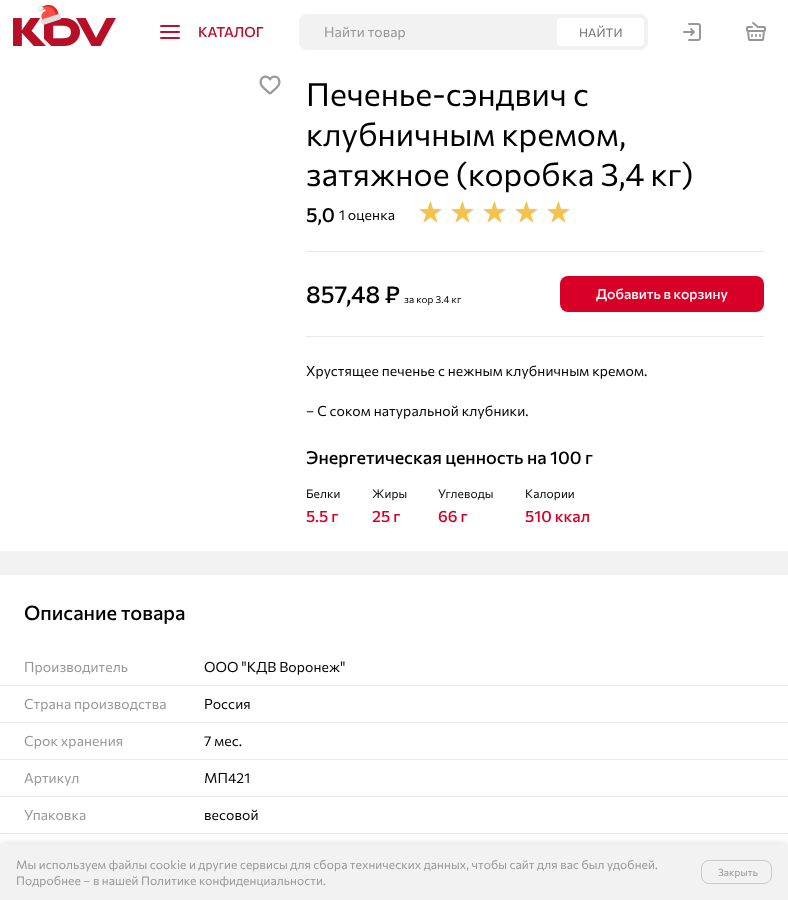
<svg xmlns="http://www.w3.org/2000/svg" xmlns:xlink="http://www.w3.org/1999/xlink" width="788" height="900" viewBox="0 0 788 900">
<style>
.cls-1{font:500 14px Commissioner;fill:#b80f29}
.cls-2{font:14px Commissioner;letter-spacing:0.1px;fill:#979797}
.cls-3{font:12px Commissioner;letter-spacing:0.1px;fill:#6f6f6f}
.cls-4{font:32px Commissioner;fill:#000000}
.cls-5{font:500 20px Commissioner;fill:#000000}
.cls-6{font:14px Commissioner;letter-spacing:0.1px;fill:#000000}
.cls-7{font:500 24px Commissioner;fill:#000000}
.cls-8{font:10px Commissioner;letter-spacing:0.1px;fill:#000000}
.cls-9{font:500 14px Commissioner;fill:#ffffff}
.cls-10{font:500 18px Commissioner;fill:#000000}
.cls-11{font:12px Commissioner;letter-spacing:0.1px;fill:#000000}
.cls-12{font:500 16px Commissioner;fill:#d80027}
.cls-13{font:12px Commissioner;letter-spacing:0.1px;fill:#979797}
.cls-14{font:10px Commissioner;letter-spacing:0.1px;fill:#979797}
</style>
<rect width="100%" height="100%" fill="#f2f2f2"/>
<rect fill="#ffffff" x="0" y="0" width="788" height="551"/>
<image xlink:href="image0.png" x="13" y="5" width="103" height="41"/>
<rect fill="#bb112d" x="160" y="25" width="20" height="2" rx="1"/>
<rect fill="#bb112d" x="160" y="31" width="20" height="2" rx="1"/>
<rect fill="#bb112d" x="160" y="37" width="20" height="2" rx="1"/>
<rect fill="#f2f2f2" stroke="#f2f2f2" x="299.5" y="14.5" width="348" height="35" rx="7.5"/>
<rect fill="#ffffff" x="557" y="18" width="87" height="28" rx="4"/>
<image xlink:href="image1.png" x="683" y="23" width="18" height="18"/>
<image xlink:href="image2.png" x="746" y="22" width="20" height="19"/>
<image xlink:href="image3.png" x="259" y="75" width="22" height="20"/>
<image xlink:href="image4.png" x="419" y="201" width="151" height="22"/>
<rect fill="#e8e8e8" x="306" y="251" width="458" height="1"/>
<rect fill="#e8e8e8" x="306" y="336" width="458" height="1"/>
<rect fill="#d80027" x="560" y="276" width="204" height="36" rx="8"/>
<rect fill="#ffffff" x="0" y="575" width="788" height="269"/>
<rect fill="#e8e8e8" x="0" y="685" width="788" height="1"/>
<rect fill="#e8e8e8" x="0" y="722" width="788" height="1"/>
<rect fill="#e8e8e8" x="0" y="759" width="788" height="1"/>
<rect fill="#e8e8e8" x="0" y="796" width="788" height="1"/>
<rect fill="#e8e8e8" x="0" y="833" width="788" height="1"/>
<rect fill="#000000" fill-opacity="0.15" filter="blur(4px)" x="0" y="844" width="788" height="56"/>
<rect fill="#f2f2f2" x="0" y="844" width="788" height="56"/>
<rect fill="none" stroke="#c9c9c9" x="701.5" y="860.5" width="70" height="23" rx="7.5"/>
<text class="cls-1" x="198" y="37">КАТАЛОГ</text>
<text class="cls-2" x="324" y="37">Найти товар</text>
<text class="cls-3" x="579" y="37">НАЙТИ</text>
<text class="cls-4"><tspan x="306" y="106">Печенье-сэндвич с</tspan><tspan x="306" y="146">клубничным кремом,</tspan><tspan x="306" y="186">затяжное (коробка 3,4 кг)</tspan></text>
<text class="cls-5" x="306" y="222">5,0</text>
<text class="cls-6" x="339" y="220">1 оценка</text>
<text class="cls-7" x="306" y="303">857,48 ₽</text>
<text class="cls-8" x="404" y="303">за кор 3.4 кг</text>
<text class="cls-9" x="596" y="299">Добавить в корзину</text>
<text class="cls-6" x="306" y="376">Хрустящее печенье с нежным клубничным кремом.</text>
<text class="cls-6" x="306" y="416">– С соком натуральной клубники.</text>
<text class="cls-10" x="306" y="464">Энергетическая ценность на 100 г</text>
<text class="cls-11" x="306" y="498">Белки</text>
<text class="cls-12" x="306" y="522">5.5 г</text>
<text class="cls-11" x="372" y="498">Жиры</text>
<text class="cls-12" x="372" y="522">25 г</text>
<text class="cls-11" x="438" y="498">Углеводы</text>
<text class="cls-12" x="438" y="522">66 г</text>
<text class="cls-11" x="525" y="498">Калории</text>
<text class="cls-12" x="525" y="522">510 ккал</text>
<text class="cls-5" x="24" y="620">Описание товара</text>
<text class="cls-2" x="24" y="672">Производитель</text>
<text class="cls-6" x="204" y="672">ООО "КДВ Воронеж"</text>
<text class="cls-2" x="24" y="709">Страна производства</text>
<text class="cls-6" x="204" y="709">Россия</text>
<text class="cls-2" x="24" y="746">Срок хранения</text>
<text class="cls-6" x="204" y="746">7 мес.</text>
<text class="cls-2" x="24" y="783">Артикул</text>
<text class="cls-6" x="204" y="783">МП421</text>
<text class="cls-2" x="24" y="820">Упаковка</text>
<text class="cls-6" x="204" y="820">весовой</text>
<text class="cls-13"><tspan x="16" y="869">Мы используем файлы cookie и другие сервисы для сбора технических данных, чтобы сайт для вас был удобней.</tspan><tspan x="16" y="885">Подробнее – в нашей Политике конфиденциальности.</tspan></text>
<text class="cls-14" x="718" y="876">Закрыть</text>
</svg>
